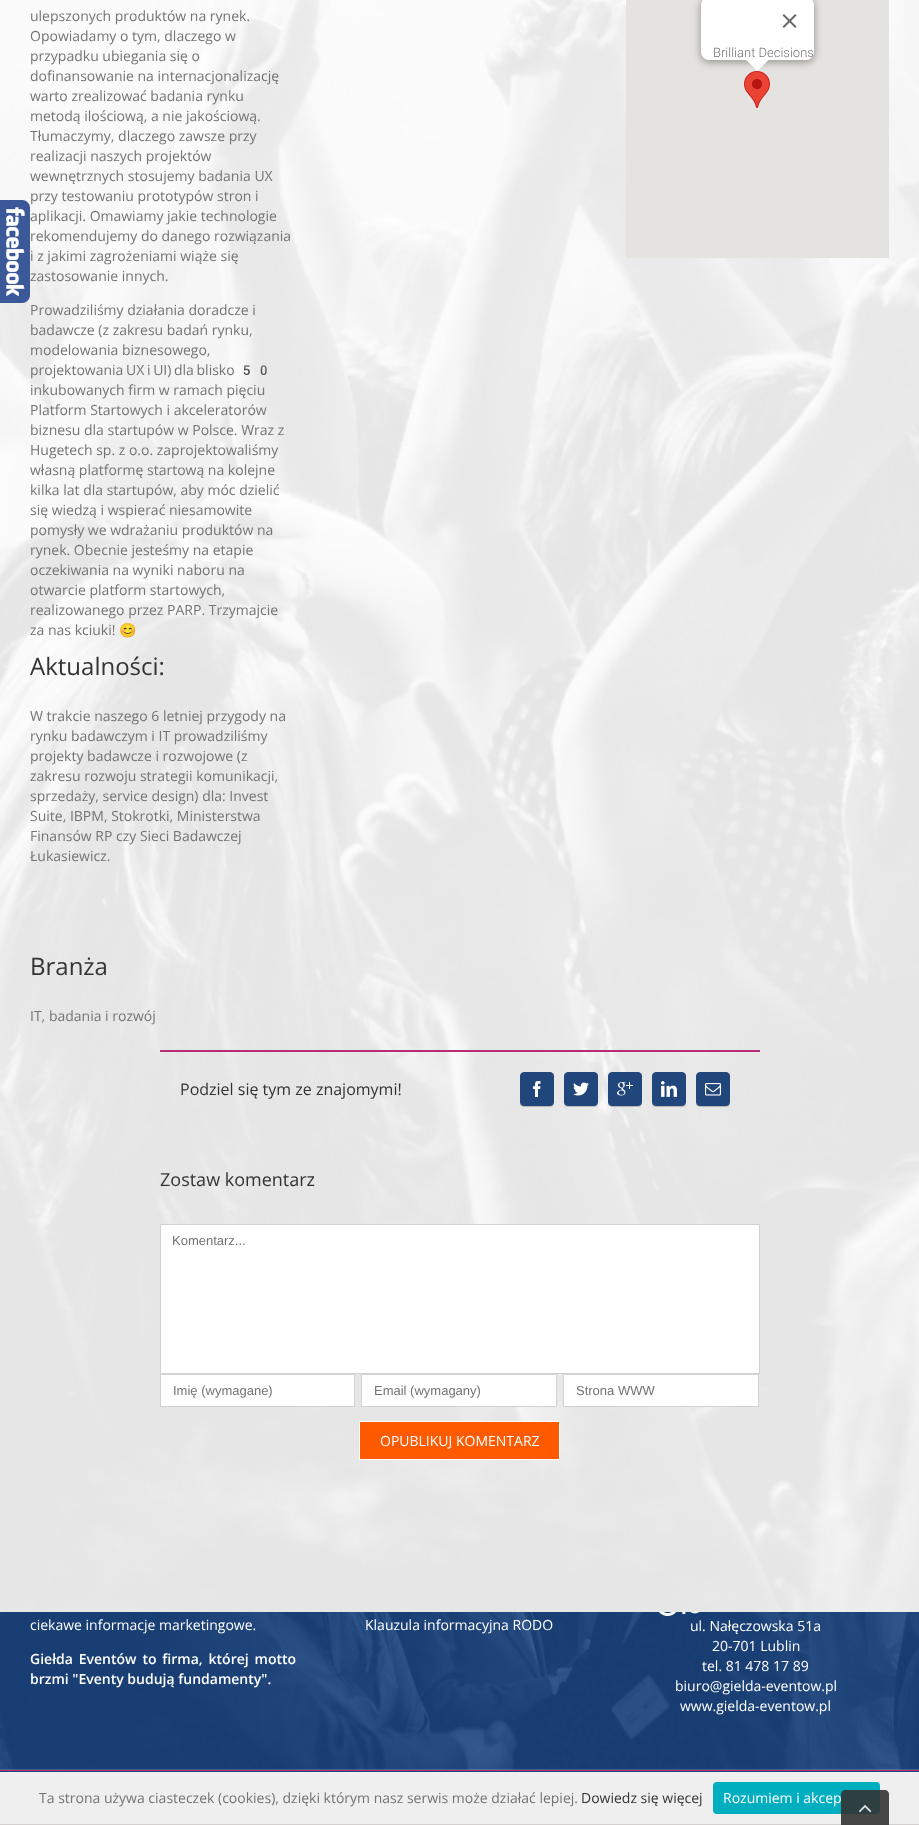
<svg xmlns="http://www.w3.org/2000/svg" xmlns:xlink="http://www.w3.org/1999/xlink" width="919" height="1825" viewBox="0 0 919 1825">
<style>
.cls-1{font:14px Open Sans;fill:#747474}
.cls-2{font:14px Noto Color Emoji;fill:#747474}
.cls-3{font:24px Open Sans;fill:#333333}
.cls-4{font:300 13px Roboto;fill:#747474}
.cls-5{font:16px Open Sans;fill:#333333}
.cls-6{font:18px Open Sans;fill:#333333}
.cls-7{font:13px Liberation Sans;fill:#747474}
.cls-8{font:14px Open Sans;fill:#ffffff}
.cls-9{font:600 14px Open Sans;fill:#ffffff}
.cls-10{font:14px Open Sans;fill:#333333}
</style>
<rect width="100%" height="100%" fill="#ffffff"/>
<image xlink:href="image1.png" x="0" y="0" width="919" height="1612"/>
<image xlink:href="image0.png" x="0" y="200" width="30" height="103"/>
<rect fill="#e5e3df" x="626" y="0" width="263" height="258"/>
<image xlink:href="image3.png" x="744" y="71" width="26" height="37"/>
<rect fill="#000000" fill-opacity="0.3" filter="blur(3.5px)" x="700" y="-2" width="115" height="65" rx="9"/>
<rect fill="#ffffff" x="701" y="-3" width="113" height="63" rx="8"/>
<image xlink:href="image2.png" x="782" y="14" width="15" height="14"/>
<path fill="#ffffff" d="M769.5 59H745L757.5 71Z"/>
<rect fill="#b52e73" x="160" y="1050" width="600" height="2"/>
<rect fill="#000000" fill-opacity="0.2" filter="blur(0.5px)" x="520" y="1073" width="34" height="34" rx="4"/>
<rect fill="#21467b" stroke="#21467b" x="520.5" y="1072.5" width="33" height="33" rx="3.5"/>
<image xlink:href="image4.png" x="533" y="1081" width="8" height="16"/>
<rect fill="#000000" fill-opacity="0.2" filter="blur(0.5px)" x="564" y="1073" width="34" height="34" rx="4"/>
<rect fill="#21467b" stroke="#21467b" x="564.5" y="1072.5" width="33" height="33" rx="3.5"/>
<image xlink:href="image5.png" x="573" y="1082" width="16" height="14"/>
<rect fill="#000000" fill-opacity="0.2" filter="blur(0.5px)" x="608" y="1073" width="34" height="34" rx="4"/>
<rect fill="#21467b" stroke="#21467b" x="608.5" y="1072.5" width="33" height="33" rx="3.5"/>
<image xlink:href="image6.png" x="617" y="1082" width="16" height="14"/>
<rect fill="#000000" fill-opacity="0.2" filter="blur(0.5px)" x="652" y="1073" width="34" height="34" rx="4"/>
<rect fill="#21467b" stroke="#21467b" x="652.5" y="1072.5" width="33" height="33" rx="3.5"/>
<image xlink:href="image7.png" x="661" y="1081" width="16" height="16"/>
<rect fill="#000000" fill-opacity="0.2" filter="blur(0.5px)" x="696" y="1073" width="34" height="34" rx="4"/>
<rect fill="#21467b" stroke="#21467b" x="696.5" y="1072.5" width="33" height="33" rx="3.5"/>
<image xlink:href="image8.png" x="705" y="1083" width="16" height="13"/>
<rect fill="#ffffff" stroke="#d2d2d2" x="160.5" y="1224.5" width="599" height="149"/>
<rect fill="#ffffff" stroke="#d2d2d2" x="160.5" y="1374.5" width="194" height="32"/>
<rect fill="#ffffff" stroke="#d2d2d2" x="361.5" y="1374.5" width="195" height="32"/>
<rect fill="#ffffff" stroke="#d2d2d2" x="563.5" y="1374.5" width="195" height="32"/>
<rect fill="#ff5a00" stroke="#ffffff" x="359.5" y="1421.5" width="200" height="38"/>
<image xlink:href="image9.png" x="0" y="1612" width="919" height="158"/>
<image xlink:href="image10.png" x="659" y="1612" width="40" height="4"/>
<rect fill="#21467b" x="0" y="1771" width="919" height="1"/>
<rect fill="#b52e73" x="0" y="1770" width="919" height="1"/>
<rect fill="#efefef" x="0" y="1772" width="919" height="52"/>
<rect fill="#d3d0d0" x="0" y="1824" width="919" height="1"/>
<rect fill="#00afbf" x="713" y="1782" width="167" height="32" rx="4"/>
<path fill="#333333" fill-opacity="0.9" d="M845 1790H885C887 1790 889 1792 889 1794V1825H841V1794C841 1792 843 1790 845 1790Z"/>
<image xlink:href="image11.png" x="859" y="1805" width="13" height="8"/>
<text class="cls-1"><tspan x="30" y="21">ulepszonych produktów na rynek.</tspan><tspan x="30" y="41">Opowiadamy o tym, dlaczego w</tspan><tspan x="30" y="61">przypadku ubiegania się o</tspan><tspan x="30" y="81">dofinansowanie na internacjonalizację</tspan><tspan x="30" y="101">warto zrealizować badania rynku</tspan><tspan x="30" y="121">metodą ilościową, a nie jakościową.</tspan><tspan x="30" y="141">Tłumaczymy, dlaczego zawsze przy</tspan><tspan x="30" y="161">realizacji naszych projektów</tspan><tspan x="30" y="181">wewnętrznych stosujemy badania UX</tspan><tspan x="30" y="201">przy testowaniu prototypów stron i</tspan><tspan x="30" y="221">aplikacji. Omawiamy jakie technologie</tspan><tspan x="30" y="241">rekomendujemy do danego rozwiązania</tspan><tspan x="30" y="261">i z jakimi zagrożeniami wiąże się</tspan><tspan x="30" y="281">zastosowanie innych.</tspan></text>
<text class="cls-1"><tspan x="30" y="315">Prowadziliśmy działania doradcze i</tspan><tspan x="30" y="335">badawcze (z zakresu badań rynku,</tspan><tspan x="30" y="355">modelowania biznesowego,</tspan><tspan x="30" y="375" word-spacing="-1">projektowania UX i UI) dla blisko</tspan></text>
<text class="cls-2" x="238" y="375">50</text>
<text class="cls-1"><tspan x="30" y="395">inkubowanych firm w ramach pięciu</tspan><tspan x="30" y="415">Platform Startowych i akceleratorów</tspan><tspan x="30" y="435">biznesu dla startupów w Polsce. Wraz z</tspan><tspan x="30" y="455">Hugetech sp. z o.o. zaprojektowaliśmy</tspan><tspan x="30" y="475">własną platformę startową na kolejne</tspan><tspan x="30" y="495">kilka lat dla startupów, aby móc dzielić</tspan><tspan x="30" y="515">się wiedzą i wspierać niesamowite</tspan><tspan x="30" y="535">pomysły we wdrażaniu produktów na</tspan><tspan x="30" y="555">rynek. Obecnie jesteśmy na etapie</tspan><tspan x="30" y="575">oczekiwania na wyniki naboru na</tspan><tspan x="30" y="595">otwarcie platform startowych,</tspan><tspan x="30" y="615">realizowanego przez PARP. Trzymajcie</tspan><tspan x="30" y="635">za nas kciuki!</tspan></text>
<text class="cls-2" x="119" y="635">😊</text>
<text class="cls-3" x="30" y="675">Aktualności:</text>
<text class="cls-1"><tspan x="30" y="721">W trakcie naszego 6 letniej przygody na</tspan><tspan x="30" y="741">rynku badawczym i IT prowadziliśmy</tspan><tspan x="30" y="761">projekty badawcze i rozwojowe (z</tspan><tspan x="30" y="781">zakresu rozwoju strategii komunikacji,</tspan><tspan x="30" y="801">sprzedaży, service design) dla: Invest</tspan><tspan x="30" y="821">Suite, IBPM, Stokrotki, Ministerstwa</tspan><tspan x="30" y="841">Finansów RP czy Sieci Badawczej</tspan><tspan x="30" y="861">Łukasiewicz.</tspan></text>
<text class="cls-4" x="713" y="57">Brilliant Decisions</text>
<text class="cls-3" x="30" y="975">Branża</text>
<text class="cls-1" x="30" y="1021">IT, badania i rozwój</text>
<text class="cls-5" x="180" y="1095">Podziel się tym ze znajomymi!</text>
<text class="cls-6" x="160" y="1186">Zostaw komentarz</text>
<text class="cls-7" x="172" y="1245">Komentarz...</text>
<text class="cls-7" x="173" y="1395">Imię (wymagane)</text>
<text class="cls-7" x="374" y="1395">Email (wymagany)</text>
<text class="cls-7" x="576" y="1395">Strona WWW</text>
<text class="cls-8" x="380" y="1446">OPUBLIKUJ KOMENTARZ</text>
<text class="cls-8" x="30" y="1630">ciekawe informacje marketingowe.</text>
<text class="cls-9"><tspan x="30" y="1664" word-spacing="2.25">Giełda Eventów to firma, której motto</tspan><tspan x="30" y="1684">brzmi "Eventy budują fundamenty".</tspan></text>
<text class="cls-8" x="365" y="1630">Klauzula informacyjna RODO</text>
<text class="cls-8" x="690" y="1631">ul. Nałęczowska 51a</text>
<text class="cls-8" x="712" y="1651">20-701 Lublin</text>
<text class="cls-8" x="702" y="1671">tel. 81 478 17 89</text>
<text class="cls-8" x="675" y="1691">biuro@gielda-eventow.pl</text>
<text class="cls-8" x="680" y="1711">www.gielda-eventow.pl</text>
<text class="cls-1" x="39" y="1803">Ta strona używa ciasteczek (cookies), dzięki którym nasz serwis może działać lepiej.</text>
<text class="cls-10" x="581" y="1803">Dowiedz się więcej</text>
<text class="cls-8" x="723" y="1803">Rozumiem i akcep</text>
</svg>
